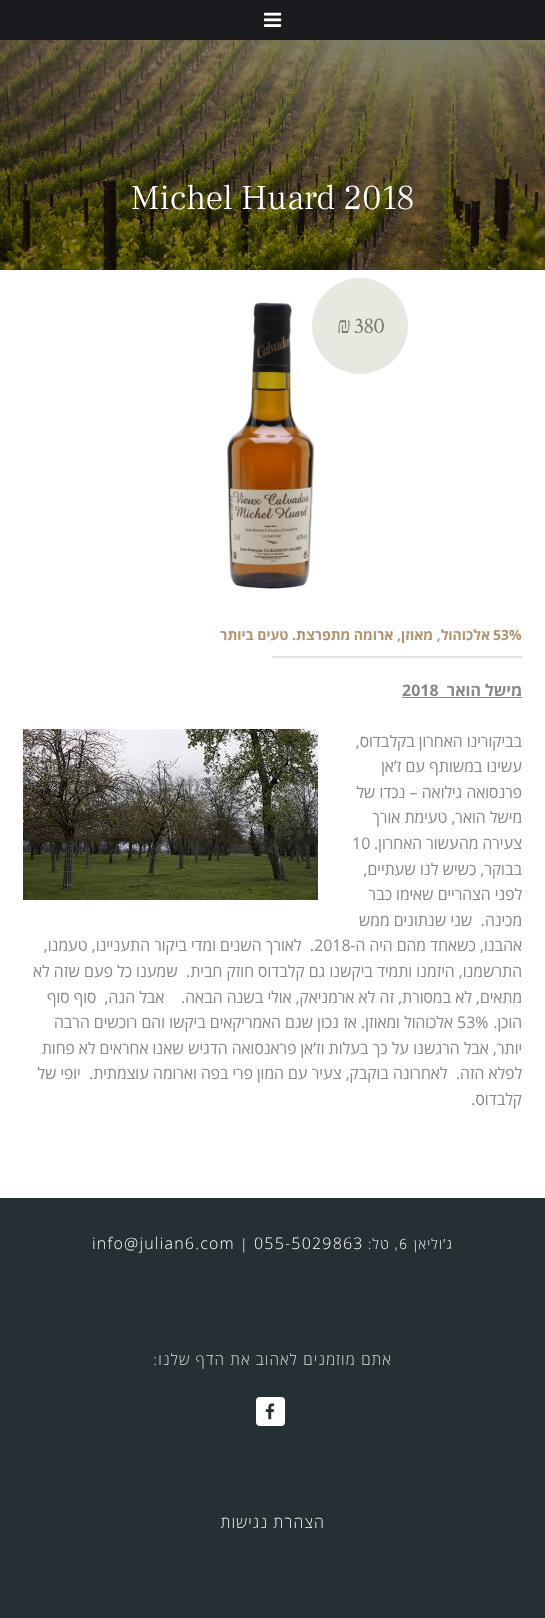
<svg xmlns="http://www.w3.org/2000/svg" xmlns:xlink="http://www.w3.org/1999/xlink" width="545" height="1618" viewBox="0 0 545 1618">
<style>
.cls-1{font:300 35px Frank Ruhl Libre;fill:#ffffff}
.cls-2{font:23px Crimson Text;letter-spacing:-1px;fill:#7e7e6a}
.cls-3{font:23px Liberation Serif;letter-spacing:-1px;fill:#7e7e6a}
.cls-4{font:bold 14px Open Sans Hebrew;fill:#b2936e}
.cls-5{font:bold 14px Open Sans Hebrew;direction:rtl;fill:#b2936e}
.cls-6{font:bold 16px Open Sans Hebrew;direction:rtl;fill:#888888}
.cls-7{font:bold 16px Open Sans Hebrew;fill:#888888}
.cls-8{font:16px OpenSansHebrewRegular;direction:rtl;fill:#888888}
.cls-9{font:16px OpenSansHebrewRegular;fill:#888888}
.cls-10{font:300 14px Open Sans Hebrew;letter-spacing:1.2px;direction:rtl;fill:#ffffff}
.cls-11{font:300 14px Open Sans Hebrew;letter-spacing:1.2px;fill:#ffffff}
.cls-12{font:300 16px Open Sans Hebrew;letter-spacing:1.2px;fill:#ffffff}
.cls-13{font:300 15.4px Open Sans Hebrew;letter-spacing:1.2px;direction:rtl;fill:#dee0e1}
.cls-14{font:300 16px Open Sans Hebrew;letter-spacing:1.2px;direction:rtl;fill:#ffffff}
</style>
<rect width="100%" height="100%" fill="#ffffff"/>
<rect fill="#181a1e" x="0" y="0" width="545" height="40"/>
<image xlink:href="image0.png" x="264" y="12" width="18" height="15"/>
<image xlink:href="image1.png" x="0" y="40" width="545" height="230"/>
<image xlink:href="image2.png" x="226" y="302" width="89" height="288"/>
<circle fill="#e8e8e1" cx="360" cy="326" r="48"/>
<rect fill="#e5e5e5" x="272" y="656" width="250" height="2"/>
<rect fill="#888888" x="402" y="697" width="120" height="1"/>
<image xlink:href="image3.png" x="23" y="729" width="295" height="171"/>
<rect fill="#253034" x="0" y="1198" width="545" height="420"/>
<rect fill="#ffffff" x="256" y="1397" width="29" height="29" rx="4"/>
<image xlink:href="image4.png" x="265" y="1403" width="10" height="17"/>
<text class="cls-1" x="131" y="209">Michel Huard 2018</text>
<text class="cls-2" x="354" y="333">380</text>
<text class="cls-3" x="337" y="333">₪</text>
<text class="cls-4" x="493" y="640">53%</text>
<text class="cls-5" x="490" y="640">אלכוהול, מאוזן, ארומה מתפרצת. טעים ביותר</text>
<text class="cls-6" x="522" y="696">מישל הואר</text>
<text class="cls-7" x="402" y="696">2018</text>
<text class="cls-8"><tspan x="522" y="747">בביקורינו האחרון בקלבדוס,</tspan><tspan x="522" y="772">עשינו במשותף עם ז’אן</tspan><tspan x="522" y="798">פרנסואה גילואה – נכדו של</tspan><tspan x="522" y="823">מישל הואר, טעימת אורך</tspan><tspan x="522" y="849">צעירה מהעשור האחרון.</tspan></text>
<text class="cls-9" x="352" y="849">10</text>
<text class="cls-8" xml:space="preserve"><tspan x="522" y="875">בבוקר, כשיש לנו שעתיים,</tspan><tspan x="522" y="900">לפני הצהריים שאימו כבר</tspan><tspan x="522" y="926">מכינה.  שני שנתונים ממש</tspan><tspan x="522" y="951">אהבנו, כשאחד מהם היה ה-</tspan></text>
<text class="cls-9" x="314" y="951">2018</text>
<text class="cls-8" xml:space="preserve" x="314" y="951">.  לאורך השנים ומדי ביקור התעניינו, טעמנו,</text>
<text class="cls-8" xml:space="preserve"><tspan x="522" y="977">התרשמנו, היזמנו ותמיד ביקשנו גם קלבדוס חוזק חבית.  שמענו כל פעם שזה לא</tspan><tspan x="522" y="1003">מתאים, לא במסורת, זה לא ארמניאק, אולי בשנה הבאה.    אבל הנה,  סוף סוף</tspan><tspan x="522" y="1028">הוכן.</tspan></text>
<text class="cls-9" x="457" y="1028">53%</text>
<text class="cls-8" x="453" y="1028">אלכוהול ומאוזן. אז נכון שגם האמריקאים ביקשו והם רוכשים הרבה</text>
<text class="cls-8" xml:space="preserve"><tspan x="522" y="1054">יותר, אבל הרגשנו על כך בעלות וז’אן פראנסואה הדגיש שאנו אחראים לא פחות</tspan><tspan x="522" y="1079">לפלא הזה.  לאחרונה בוקבק, צעיר עם המון פרי בפה וארומה עוצמתית.  יופי של</tspan><tspan x="522" y="1105">קלבדוס.</tspan></text>
<text class="cls-10" x="453" y="1249">ג’וליאן</text>
<text class="cls-11" x="399" y="1249">6</text>
<text class="cls-10" x="399" y="1249">, טל:</text>
<text class="cls-12" x="254" y="1249">055-5029863</text>
<text class="cls-11" x="240" y="1249">|</text>
<text class="cls-12" x="92" y="1249">info@julian6.com</text>
<text class="cls-13" x="392" y="1365">אתם מוזמנים לאהוב את הדף שלנו:</text>
<text class="cls-14" x="325" y="1528">הצהרת נגישות</text>
</svg>
